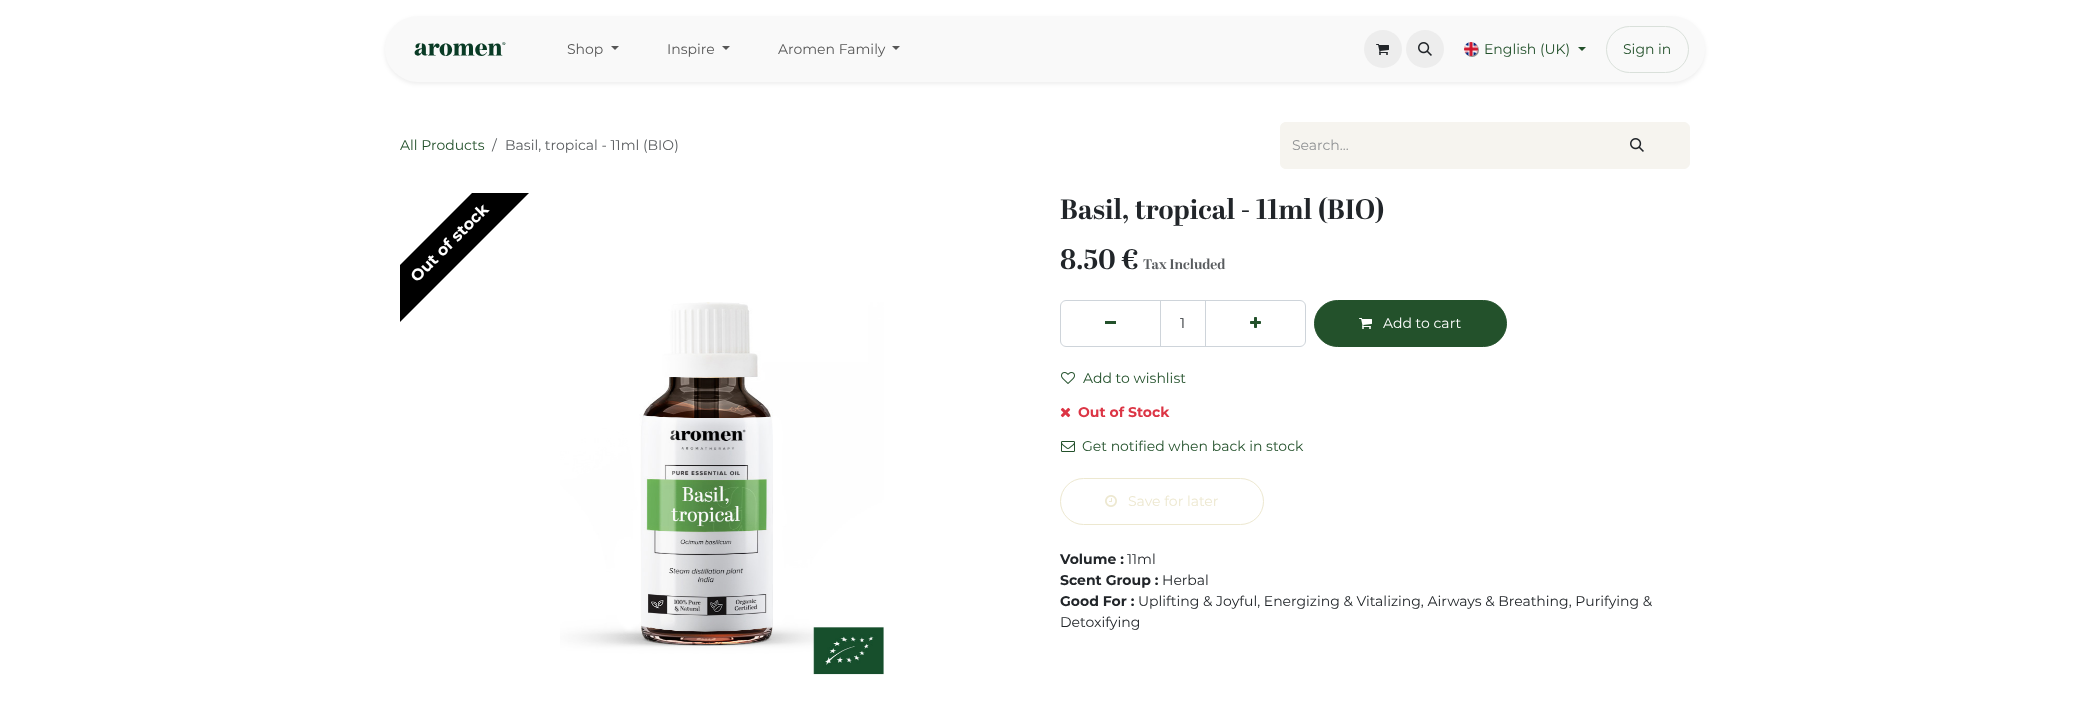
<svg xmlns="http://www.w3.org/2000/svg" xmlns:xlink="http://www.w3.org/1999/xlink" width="2089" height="710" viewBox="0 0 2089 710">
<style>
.cls-1{font:14px Montserrat;fill:#575757}
.cls-2{font:14px Montserrat;fill:#23512b}
.cls-3{font:14px Montserrat;fill:#595c5f}
.cls-4{font:14px Montserrat;fill:#909294}
.cls-5{font:bold 16px Montserrat;fill:#ffffff}
.cls-6{font:bold 28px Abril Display;fill:#212529}
.cls-7{font:bold 14px Abril Display;fill:#595c5f}
.cls-8{font:14px Montserrat;fill:#212529}
.cls-9{font:14px Montserrat;fill:#ffffff}
.cls-10{font:bold 14px Montserrat;fill:#dc3545}
.cls-11{font:14px Montserrat;fill:#ede8d0}
.cls-12{font:bold 14px Montserrat;fill:#212529}
</style>
<defs>
<clipPath id="clip1"><rect x="400" y="193" width="630" height="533"/></clipPath>
</defs>
<rect width="100%" height="100%" fill="#ffffff"/>
<rect fill="#000000" fill-opacity="0.07" filter="blur(2px)" x="385" y="18" width="1320" height="66" rx="33"/>
<rect fill="#f9f9f9" x="385" y="16" width="1320" height="66" rx="33"/>
<image xlink:href="image0.png" x="414" y="42" width="92" height="14"/>
<path fill="#575757" d="M611 46H619L615 50Z"/>
<path fill="#575757" d="M722 46H730L726 50Z"/>
<path fill="#575757" d="M892 46H900L896 50Z"/>
<circle fill="#ededed" cx="1383" cy="49" r="19"/>
<image xlink:href="image1.png" x="1376" y="44" width="13" height="11"/>
<circle fill="#ededed" cx="1425" cy="49" r="19"/>
<image xlink:href="image2.png" x="1418" y="42" width="14" height="14"/>
<rect fill="#000000" fill-opacity="0.43" filter="blur(0.5px)" x="1465" y="43" width="14" height="14" rx="7"/>
<image xlink:href="image3.png" x="1464" y="42" width="14" height="14"/>
<path fill="#23512b" d="M1578 47H1586L1582 51Z"/>
<rect fill="none" stroke="#d9e0da" x="1606.5" y="26.5" width="82" height="46" rx="23"/>
<path fill="#f6f4ef" d="M1286 122H1586V169H1286C1282.5 169 1280 166.5 1280 163V128C1280 124.5 1282.5 122 1286 122Z"/>
<path fill="#f6f4ef" stroke="#f6f4ef" d="M1585.5 122.5H1684C1687 122.5 1689.5 125 1689.5 128V163C1689.5 166 1687 168.5 1684 168.5H1585.5Z"/>
<image xlink:href="image4.png" x="1630" y="138" width="14" height="14"/>
<g clip-path="url(#clip1)">
<path fill="#000000" d="M329 336L543 122L571 151L357 365Z"/>
</g>
<image xlink:href="image5.png" x="560" y="302" width="324" height="373"/>
<rect fill="none" stroke="#ced4da" x="1160.5" y="300.5" width="45" height="46"/>
<path fill="none" stroke="#ced4da" d="M1066 300.5H1160.5V346.5H1066C1063 346.5 1060.5 344 1060.5 341V306C1060.5 303 1063 300.5 1066 300.5Z"/>
<rect fill="#23512b" x="1105" y="321" width="11" height="3"/>
<path fill="none" stroke="#ced4da" d="M1205.5 300.5H1300C1303 300.5 1305.5 303 1305.5 306V341C1305.5 344 1303 346.5 1300 346.5H1205.5Z"/>
<image xlink:href="image6.png" x="1250" y="317" width="11" height="11"/>
<rect fill="#23512b" stroke="#23512b" x="1314.5" y="300.5" width="192" height="46" rx="23"/>
<image xlink:href="image7.png" x="1359" y="318" width="13" height="11"/>
<image xlink:href="image8.png" x="1061" y="372" width="14" height="12"/>
<image xlink:href="image9.png" x="1060" y="407" width="11" height="11"/>
<image xlink:href="image10.png" x="1061" y="441" width="14" height="11"/>
<rect fill="none" stroke="#ede8d0" x="1060.5" y="478.5" width="203" height="46" rx="23"/>
<image xlink:href="image11.png" x="1105" y="495" width="12" height="12"/>
<text class="cls-1" x="567" y="54">Shop</text>
<text class="cls-1" x="667" y="54">Inspire</text>
<text class="cls-1" x="778" y="54">Aromen Family</text>
<text class="cls-2" x="1484" y="54">English (UK)</text>
<text class="cls-2" x="1623" y="54">Sign in</text>
<text class="cls-2" x="400" y="150">All Products</text>
<text class="cls-3" x="492" y="150">/</text>
<text class="cls-3" x="505" y="150">Basil, tropical - 11ml (BIO)</text>
<text class="cls-4" x="1292" y="150">Search...</text>
<text class="cls-5" x="417" y="283" transform="rotate(-45 417 283)">Out of stock</text>
<text class="cls-6"><tspan x="1060" y="219">Basil, tropical - 11ml (BIO)</tspan><tspan x="1060" y="269">8.50 €</tspan></text>
<text class="cls-7" x="1143" y="269">Tax Included</text>
<text class="cls-8" x="1180" y="328">1</text>
<text class="cls-9" x="1383" y="328">Add to cart</text>
<text class="cls-2" x="1083" y="383">Add to wishlist</text>
<text class="cls-10" x="1078" y="417">Out of Stock</text>
<text class="cls-2" x="1082" y="451">Get notified when back in stock</text>
<text class="cls-11" x="1128" y="506">Save for later</text>
<text class="cls-12" x="1060" y="564">Volume :</text>
<text class="cls-8" x="1127" y="564">11ml</text>
<text class="cls-12" x="1060" y="585">Scent Group :</text>
<text class="cls-8" x="1162" y="585">Herbal</text>
<text class="cls-12" x="1060" y="606">Good For :</text>
<text class="cls-8" x="1138" y="606">Uplifting &amp; Joyful, Energizing &amp; Vitalizing, Airways &amp; Breathing, Purifying &amp;</text>
<text class="cls-8" x="1060" y="627">Detoxifying</text>
</svg>
